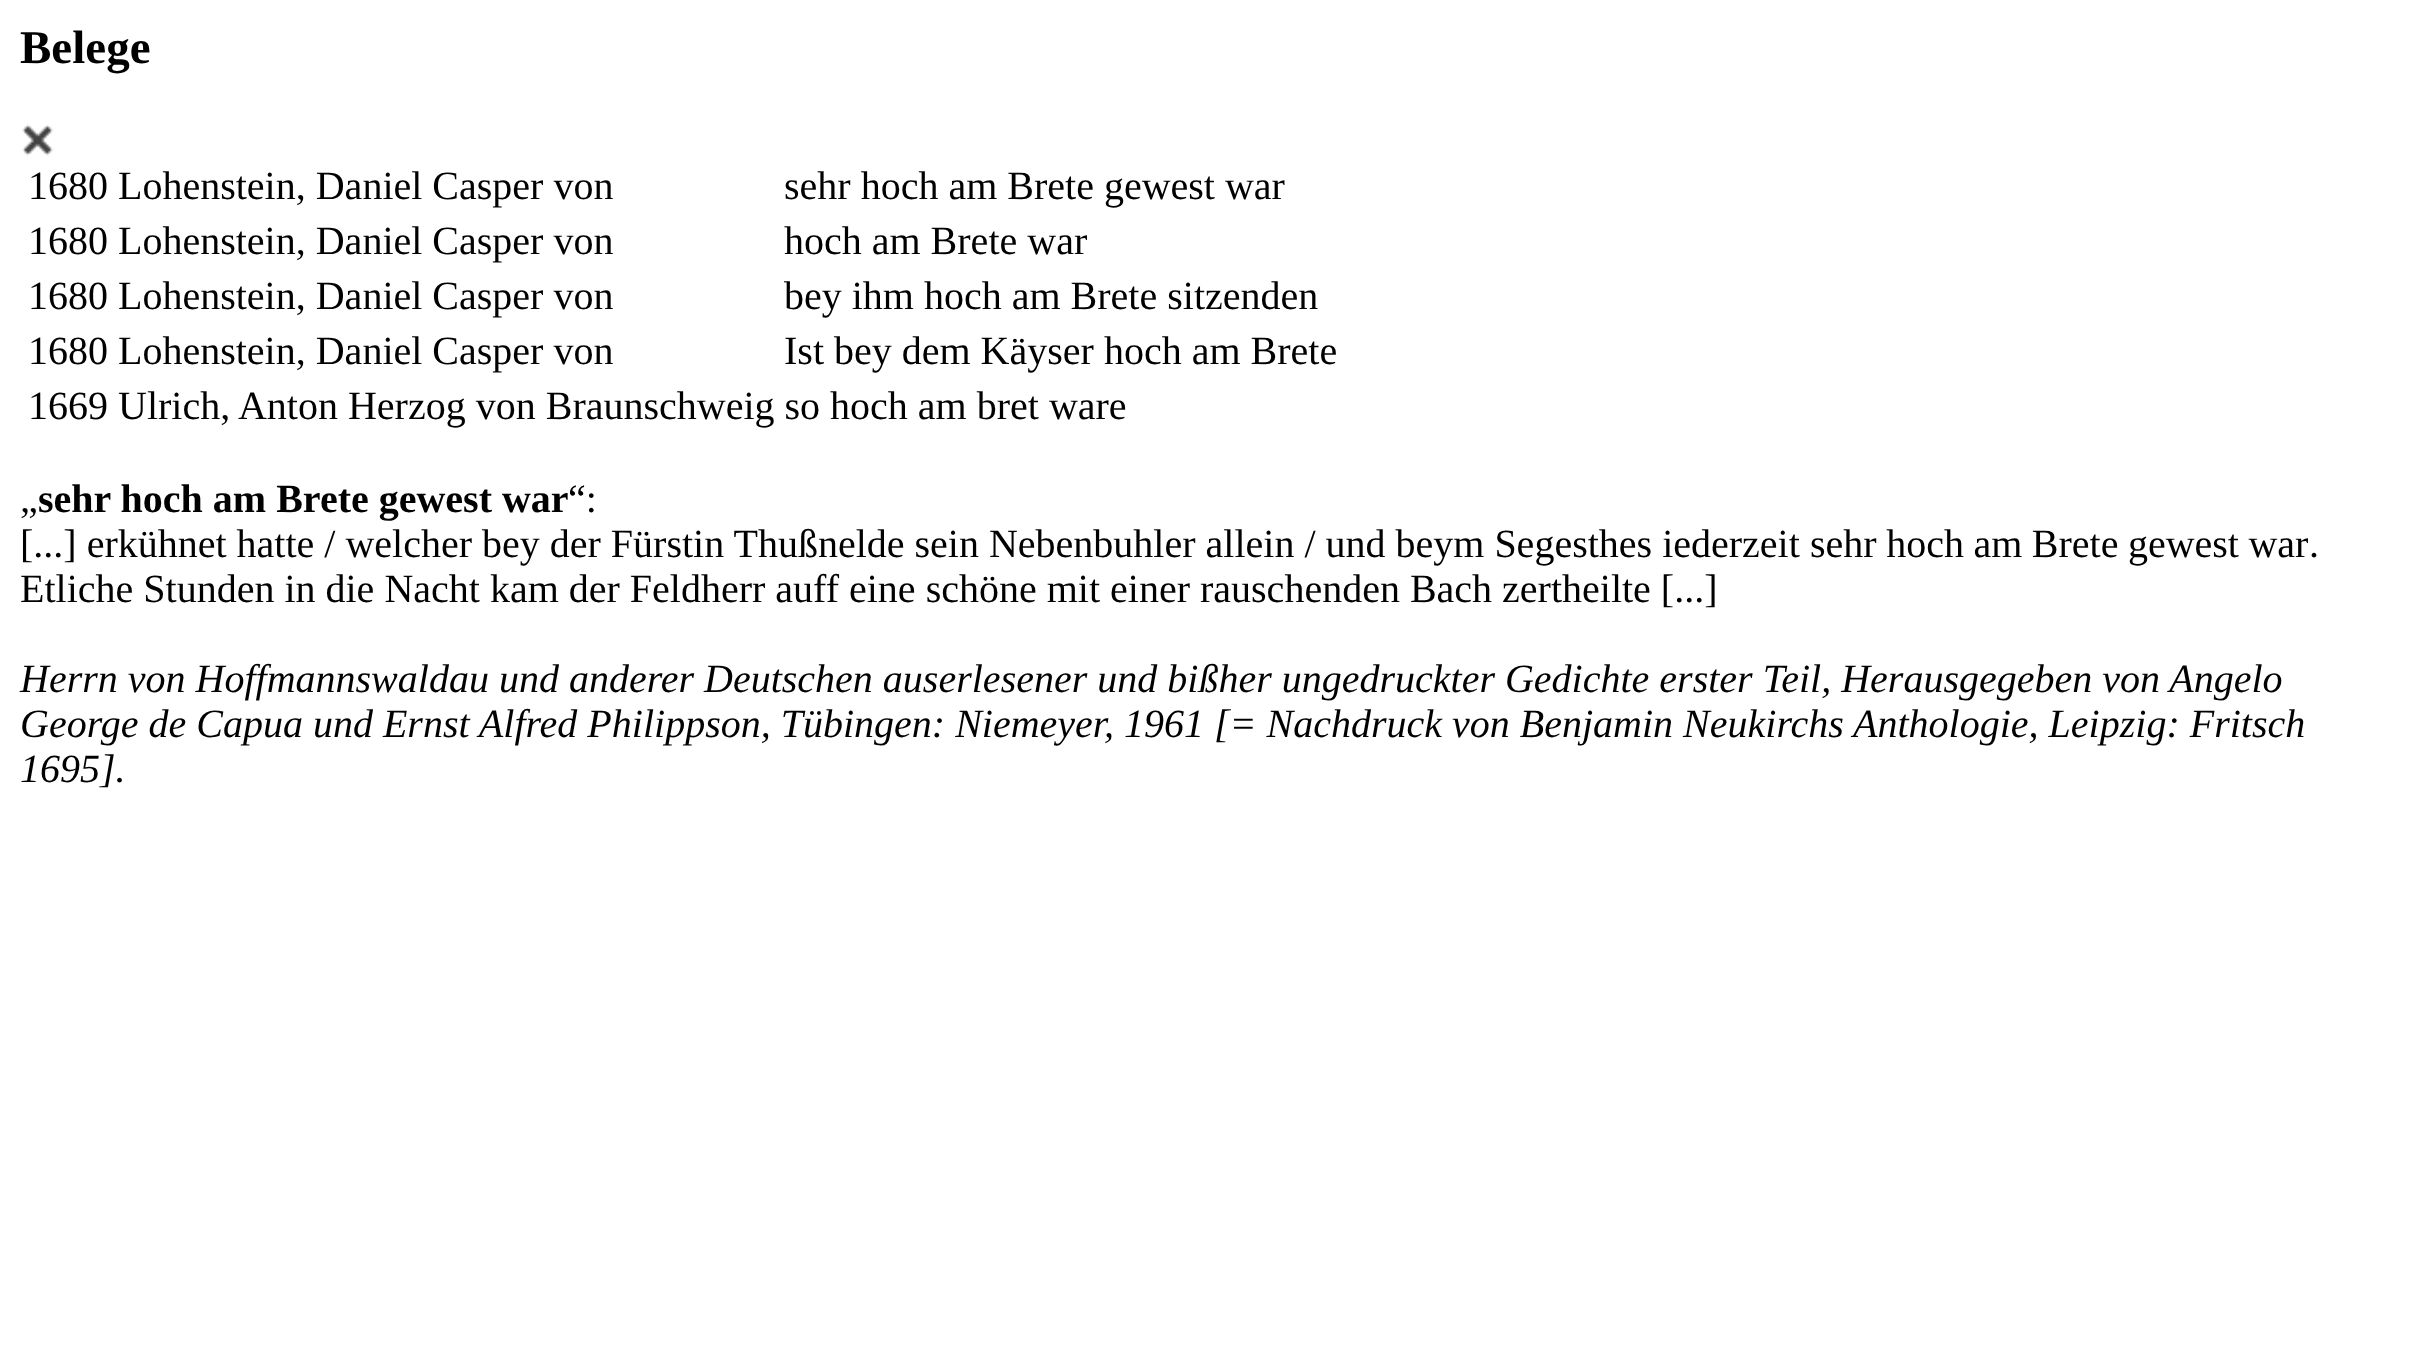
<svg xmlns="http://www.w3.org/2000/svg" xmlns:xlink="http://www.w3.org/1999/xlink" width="2412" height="1367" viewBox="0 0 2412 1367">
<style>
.cls-1{font:bold 47px Liberation Serif;fill:#000000}
.cls-2{font:40px Liberation Serif;fill:#000000}
.cls-3{font:bold 40px Liberation Serif;fill:#000000}
.cls-4{font:italic 40px Liberation Serif;fill:#000000}
</style>
<rect width="100%" height="100%" fill="#ffffff"/>
<image xlink:href="image0.png" x="22" y="124" width="32" height="32"/>
<text class="cls-1" x="20" y="63">Belege</text>
<text class="cls-2" x="28" y="199">1680 Lohenstein, Daniel Casper von</text>
<text class="cls-2" x="784" y="199">sehr hoch am Brete gewest war</text>
<text class="cls-2" x="28" y="254">1680 Lohenstein, Daniel Casper von</text>
<text class="cls-2" x="784" y="254">hoch am Brete war</text>
<text class="cls-2" x="28" y="309">1680 Lohenstein, Daniel Casper von</text>
<text class="cls-2" x="784" y="309">bey ihm hoch am Brete sitzenden</text>
<text class="cls-2" x="28" y="364">1680 Lohenstein, Daniel Casper von</text>
<text class="cls-2" x="784" y="364">Ist bey dem Käyser hoch am Brete</text>
<text class="cls-2" x="28" y="419">1669 Ulrich, Anton Herzog von Braunschweig so hoch am bret ware</text>
<text class="cls-2" x="20" y="512">„</text>
<text class="cls-3" x="38" y="512">sehr hoch am Brete gewest war</text>
<text class="cls-2" x="568" y="512">“:</text>
<text class="cls-2" x="20" y="557">[...] erkühnet hatte / welcher bey der Fürstin Thußnelde sein Nebenbuhler allein / und beym Segesthes iederzeit</text>
<text class="cls-2" x="1810" y="557" word-spacing="-0.5">sehr hoch am Brete gewest war</text>
<text class="cls-2" x="2309" y="557">.</text>
<text class="cls-2" x="20" y="602">Etliche Stunden in die Nacht kam der Feldherr auff eine schöne mit einer rauschenden Bach zertheilte [...]</text>
<text class="cls-4"><tspan x="20" y="692">Herrn von Hoffmannswaldau und anderer Deutschen auserlesener und bißher ungedruckter Gedichte erster Teil, Herausgegeben von Angelo</tspan><tspan x="20" y="737">George de Capua und Ernst Alfred Philippson, Tübingen: Niemeyer, 1961 [= Nachdruck von Benjamin Neukirchs Anthologie, Leipzig: Fritsch</tspan><tspan x="20" y="782">1695].</tspan></text>
</svg>
